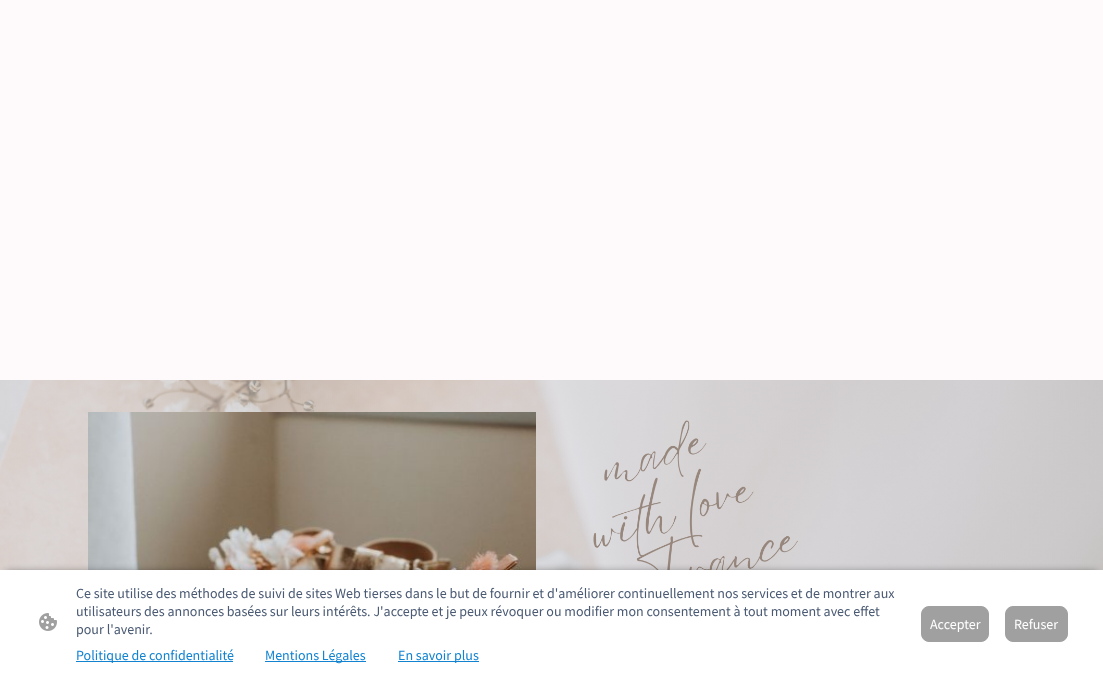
<svg xmlns="http://www.w3.org/2000/svg" xmlns:xlink="http://www.w3.org/1999/xlink" width="1103" height="678" viewBox="0 0 1103 678">
<style>
.cls-1{font:14px Source Sans Pro;fill:#4a5a73}
.cls-2{font:14px Source Sans Pro;fill:#1183d1}
.cls-3{font:14px Source Sans Pro;fill:#ffffff}
</style>
<rect width="100%" height="100%" fill="#fef9fa"/>
<image xlink:href="image0.png" x="0" y="380" width="1103" height="190"/>
<image xlink:href="image1.png" x="88" y="412" width="448" height="158"/>
<image xlink:href="image2.png" x="593" y="420" width="205" height="150"/>
<rect fill="#000000" fill-opacity="0.63" filter="blur(4px)" x="6" y="573" width="1091" height="96"/>
<rect fill="#ffffff" x="0" y="570" width="1103" height="108"/>
<image xlink:href="image3.png" x="39" y="613" width="18" height="18"/>
<rect fill="#1183d1" x="76" y="661" width="157" height="1"/>
<rect fill="#1183d1" x="265" y="661" width="101" height="1"/>
<rect fill="#1183d1" x="398" y="661" width="81" height="1"/>
<rect fill="#a0a0a0" stroke="#a0a0a0" x="921.5" y="606.5" width="67" height="35" rx="7.5"/>
<rect fill="#a0a0a0" stroke="#a0a0a0" x="1005.5" y="606.5" width="62" height="35" rx="7.5"/>
<text class="cls-1"><tspan x="76" y="598">Ce site utilise des méthodes de suivi de sites Web tierses dans le but de fournir et d'améliorer continuellement nos services et de montrer aux</tspan><tspan x="76" y="616">utilisateurs des annonces basées sur leurs intérêts. J'accepte et je peux révoquer ou modifier mon consentement à tout moment avec effet</tspan><tspan x="76" y="634">pour l'avenir.</tspan></text>
<text class="cls-2" x="76" y="660">Politique de confidentialité</text>
<text class="cls-2" x="265" y="660">Mentions Légales</text>
<text class="cls-2" x="398" y="660">En savoir plus</text>
<text class="cls-3" x="930" y="629">Accepter</text>
<text class="cls-3" x="1014" y="629">Refuser</text>
</svg>
